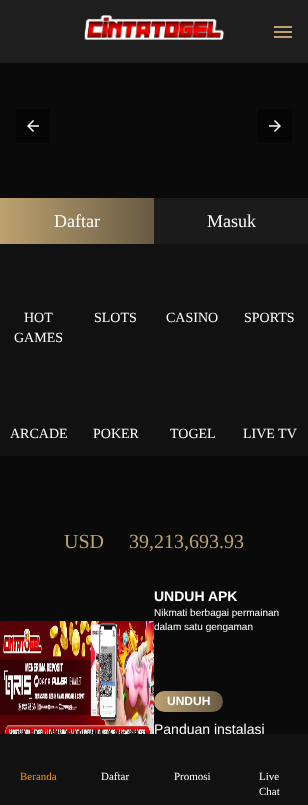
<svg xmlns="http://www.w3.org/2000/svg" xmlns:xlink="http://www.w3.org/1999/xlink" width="308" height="805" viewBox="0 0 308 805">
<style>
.cls-1{font:18px Liberation Serif;fill:#ffffff}
.cls-2{font:14px Liberation Serif;fill:#ffffff}
.cls-3{font:20px Liberation Serif;fill:#bda270}
.cls-4{font:bold 14px Liberation Sans;fill:#ffffff}
.cls-5{font:10px Liberation Sans;fill:#ffffff}
.cls-6{font:bold 12px Liberation Sans;fill:#ffffff}
.cls-7{font:14px Liberation Sans;fill:#ffffff}
.cls-8{font:11px Liberation Serif;fill:#fb9401}
.cls-9{font:11px Liberation Serif;fill:#ffffff}
</style>
<defs>
<linearGradient id="g1" gradientUnits="userSpaceOnUse" x1="0" y1="221" x2="154" y2="221"><stop offset="0" stop-color="#bda270"/><stop offset="1" stop-color="#675a43"/></linearGradient>
<linearGradient id="g2" gradientUnits="userSpaceOnUse" x1="154" y1="702" x2="223" y2="702"><stop offset="0" stop-color="#bda270"/><stop offset="1" stop-color="#675a43"/></linearGradient>
</defs>
<rect width="100%" height="100%" fill="#0a0a0a"/>
<rect fill="#1e1e1e" x="0" y="0" width="308" height="63"/>
<image xlink:href="image0.png" x="84" y="15" width="141" height="25"/>
<rect fill="#bda270" x="274" y="31" width="18" height="2"/>
<rect fill="#bda270" x="274" y="26" width="18" height="2"/>
<rect fill="#bda270" x="274" y="36" width="18" height="2"/>
<rect fill="#050505" x="16" y="109" width="34" height="34" rx="2"/>
<image xlink:href="image1.png" x="27" y="120" width="12" height="12"/>
<rect fill="#050505" x="258" y="109" width="34" height="34" rx="2"/>
<image xlink:href="image2.png" x="269" y="120" width="12" height="12"/>
<rect fill="url(#g1)" x="0" y="198" width="154" height="46"/>
<rect fill="#1b1b1b" x="154" y="198" width="154" height="46"/>
<rect fill="#111111" x="0" y="244" width="308" height="212"/>
<image xlink:href="image3.png" x="0" y="621" width="154" height="113"/>
<rect fill="url(#g2)" x="154" y="691" width="69" height="21" rx="10.5"/>
<text class="cls-1" x="54" y="227">Daftar</text>
<text class="cls-1" x="207" y="227">Masuk</text>
<text class="cls-2" x="24" y="322">HOT</text>
<text class="cls-2" x="14" y="342">GAMES</text>
<text class="cls-2" x="94" y="322">SLOTS</text>
<text class="cls-2" x="166" y="322">CASINO</text>
<text class="cls-2" x="244" y="322">SPORTS</text>
<text class="cls-2" x="10" y="438">ARCADE</text>
<text class="cls-2" x="93" y="438">POKER</text>
<text class="cls-2" x="170" y="438">TOGEL</text>
<text class="cls-2" x="243" y="438">LIVE TV</text>
<text class="cls-3" x="64" y="548">USD</text>
<text class="cls-3" x="129" y="548">39,213,693.93</text>
<text class="cls-4" x="154" y="601">UNDUH APK</text>
<text class="cls-5"><tspan x="154" y="616">Nikmati berbagai permainan</tspan><tspan x="154" y="630">dalam satu gengaman</tspan></text>
<text class="cls-6" x="167" y="705">UNDUH</text>
<text class="cls-7" x="154" y="734">Panduan instalasi</text>
<rect fill="#111111" x="0" y="734" width="308" height="71"/>
<text class="cls-8" x="20" y="780">Beranda</text>
<text class="cls-9" x="101" y="780">Daftar</text>
<text class="cls-9" x="174" y="780">Promosi</text>
<text class="cls-9"><tspan x="259" y="780">Live</tspan><tspan x="259" y="795">Chat</tspan></text>
</svg>
